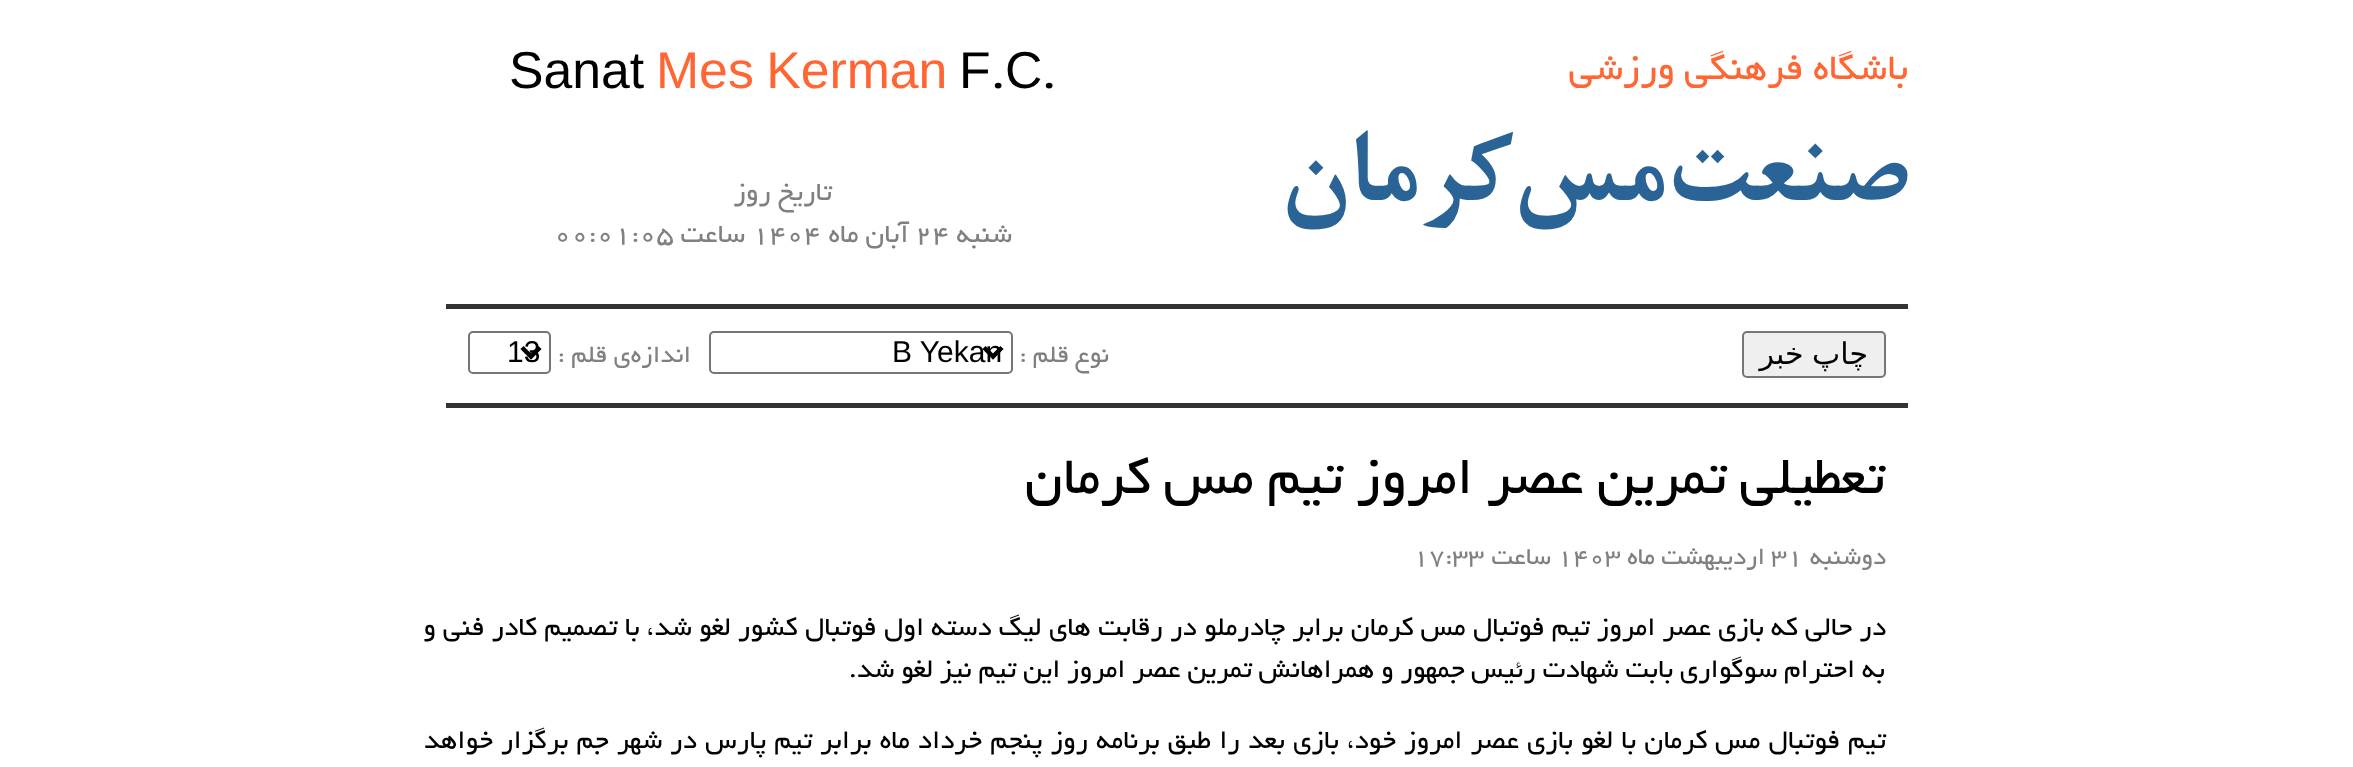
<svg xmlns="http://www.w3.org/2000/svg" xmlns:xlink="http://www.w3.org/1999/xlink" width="2353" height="767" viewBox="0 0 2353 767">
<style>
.cls-1{font:40.5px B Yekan;direction:rtl;fill:#ff6633}
.cls-2{font:bold 112.5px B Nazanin;direction:rtl;fill:#2a6496}
.cls-3{font:51.75px Liberation Sans;fill:#000000}
.cls-4{font:51.75px Liberation Sans;fill:#ff6633}
.cls-5{font:51.75px B Yekan;fill:#000000}
.cls-6{font:29.25px B Yekan;direction:rtl;fill:#808080}
.cls-7{font:29.25px B Yekan;fill:#808080}
.cls-8{font:30px DejaVu Sans;direction:rtl;fill:#000000}
.cls-9{font:27px B Yekan;direction:rtl;fill:#808080}
.cls-10{font:30px Liberation Sans;fill:#000000}
.cls-11{font:58.5px B Yekan;direction:rtl;fill:#000000}
.cls-12{font:27px B Yekan;fill:#808080}
.cls-13{font:29.25px B Yekan;direction:rtl;fill:#000000}
</style>
<rect width="100%" height="100%" fill="#ffffff"/>
<rect fill="#333333" x="446" y="304" width="1462" height="5"/>
<rect fill="#333333" x="446" y="403" width="1462" height="5"/>
<rect fill="#efefef" stroke="#767676" stroke-width="2" x="1743" y="332" width="142" height="45" rx="4"/>
<rect fill="none" stroke="#767676" stroke-width="2" x="710" y="332" width="302" height="41" rx="4"/>
<path fill="none" stroke="#000000" stroke-width="4.5" d="M984 347.5L993 356.5L1002 347.5"/>
<rect fill="none" stroke="#767676" stroke-width="2" x="469" y="332" width="81" height="41" rx="4"/>
<path fill="none" stroke="#000000" stroke-width="4.5" d="M522 347.5L531 356.5L540 347.5"/>
<text class="cls-1" x="1908" y="79">باشگاه فرهنگی ورزشی</text>
<text class="cls-2" x="1908" y="200">صنعت‌مس‌کرمان</text>
<text class="cls-3" x="959" y="88">F C</text>
<text class="cls-4" x="656" y="88" word-spacing="-2">Mes Kerman</text>
<text class="cls-3" x="509" y="88">Sanat</text>
<text class="cls-5" x="1042" y="88">.</text>
<text class="cls-5" x="991" y="88">.</text>
<text class="cls-6" x="832" y="200">تاریخ روز</text>
<text class="cls-6" x="1012" y="242">شنبه</text>
<text class="cls-7" x="915" y="242">24</text>
<text class="cls-6" x="909" y="242">آبان ماه</text>
<text class="cls-7" x="752" y="242">1404</text>
<text class="cls-6" x="745" y="242">ساعت</text>
<text class="cls-7" x="554" y="242">00:01:05</text>
<text class="cls-8" x="1868" y="364" word-spacing="-1">چاپ خبر</text>
<text class="cls-9" x="1109" y="362">نوع قلم :‌</text>
<text class="cls-10" x="892" y="362">B Yekan</text>
<text class="cls-9" x="691" y="362">اندازه‌ی قلم :‌</text>
<text class="cls-10" x="507" y="362">13</text>
<text class="cls-11" x="1885" y="493">تعطیلی تمرین عصر امروز تیم مس کرمان</text>
<text class="cls-9" x="1886" y="564">دوشنبه</text>
<text class="cls-12" x="1771" y="564">31</text>
<text class="cls-9" x="1765" y="564">اردیبهشت ماه</text>
<text class="cls-12" x="1557" y="564">1403</text>
<text class="cls-9" x="1551" y="564">ساعت</text>
<text class="cls-12" x="1413" y="564">17:33</text>
<text class="cls-13" x="1886" y="635" word-spacing="0.5">در حالی که بازی عصر امروز تیم فوتبال مس کرمان برابر چادرملو در رقابت های لیگ دسته اول فوتبال کشور لغو شد، با تصمیم کادر فنی و</text>
<text class="cls-13" x="1885" y="677">به احترام سوگواری بابت شهادت رئیس جمهور و همراهانش تمرین عصر امروز این تیم نیز لغو شد.</text>
<text class="cls-13" x="1886" y="748" word-spacing="1.4">تیم فوتبال مس کرمان با لغو بازی عصر امروز خود، بازی بعد را طبق برنامه روز پنجم خرداد ماه برابر تیم پارس در شهر جم برگزار خواهد</text>
</svg>
